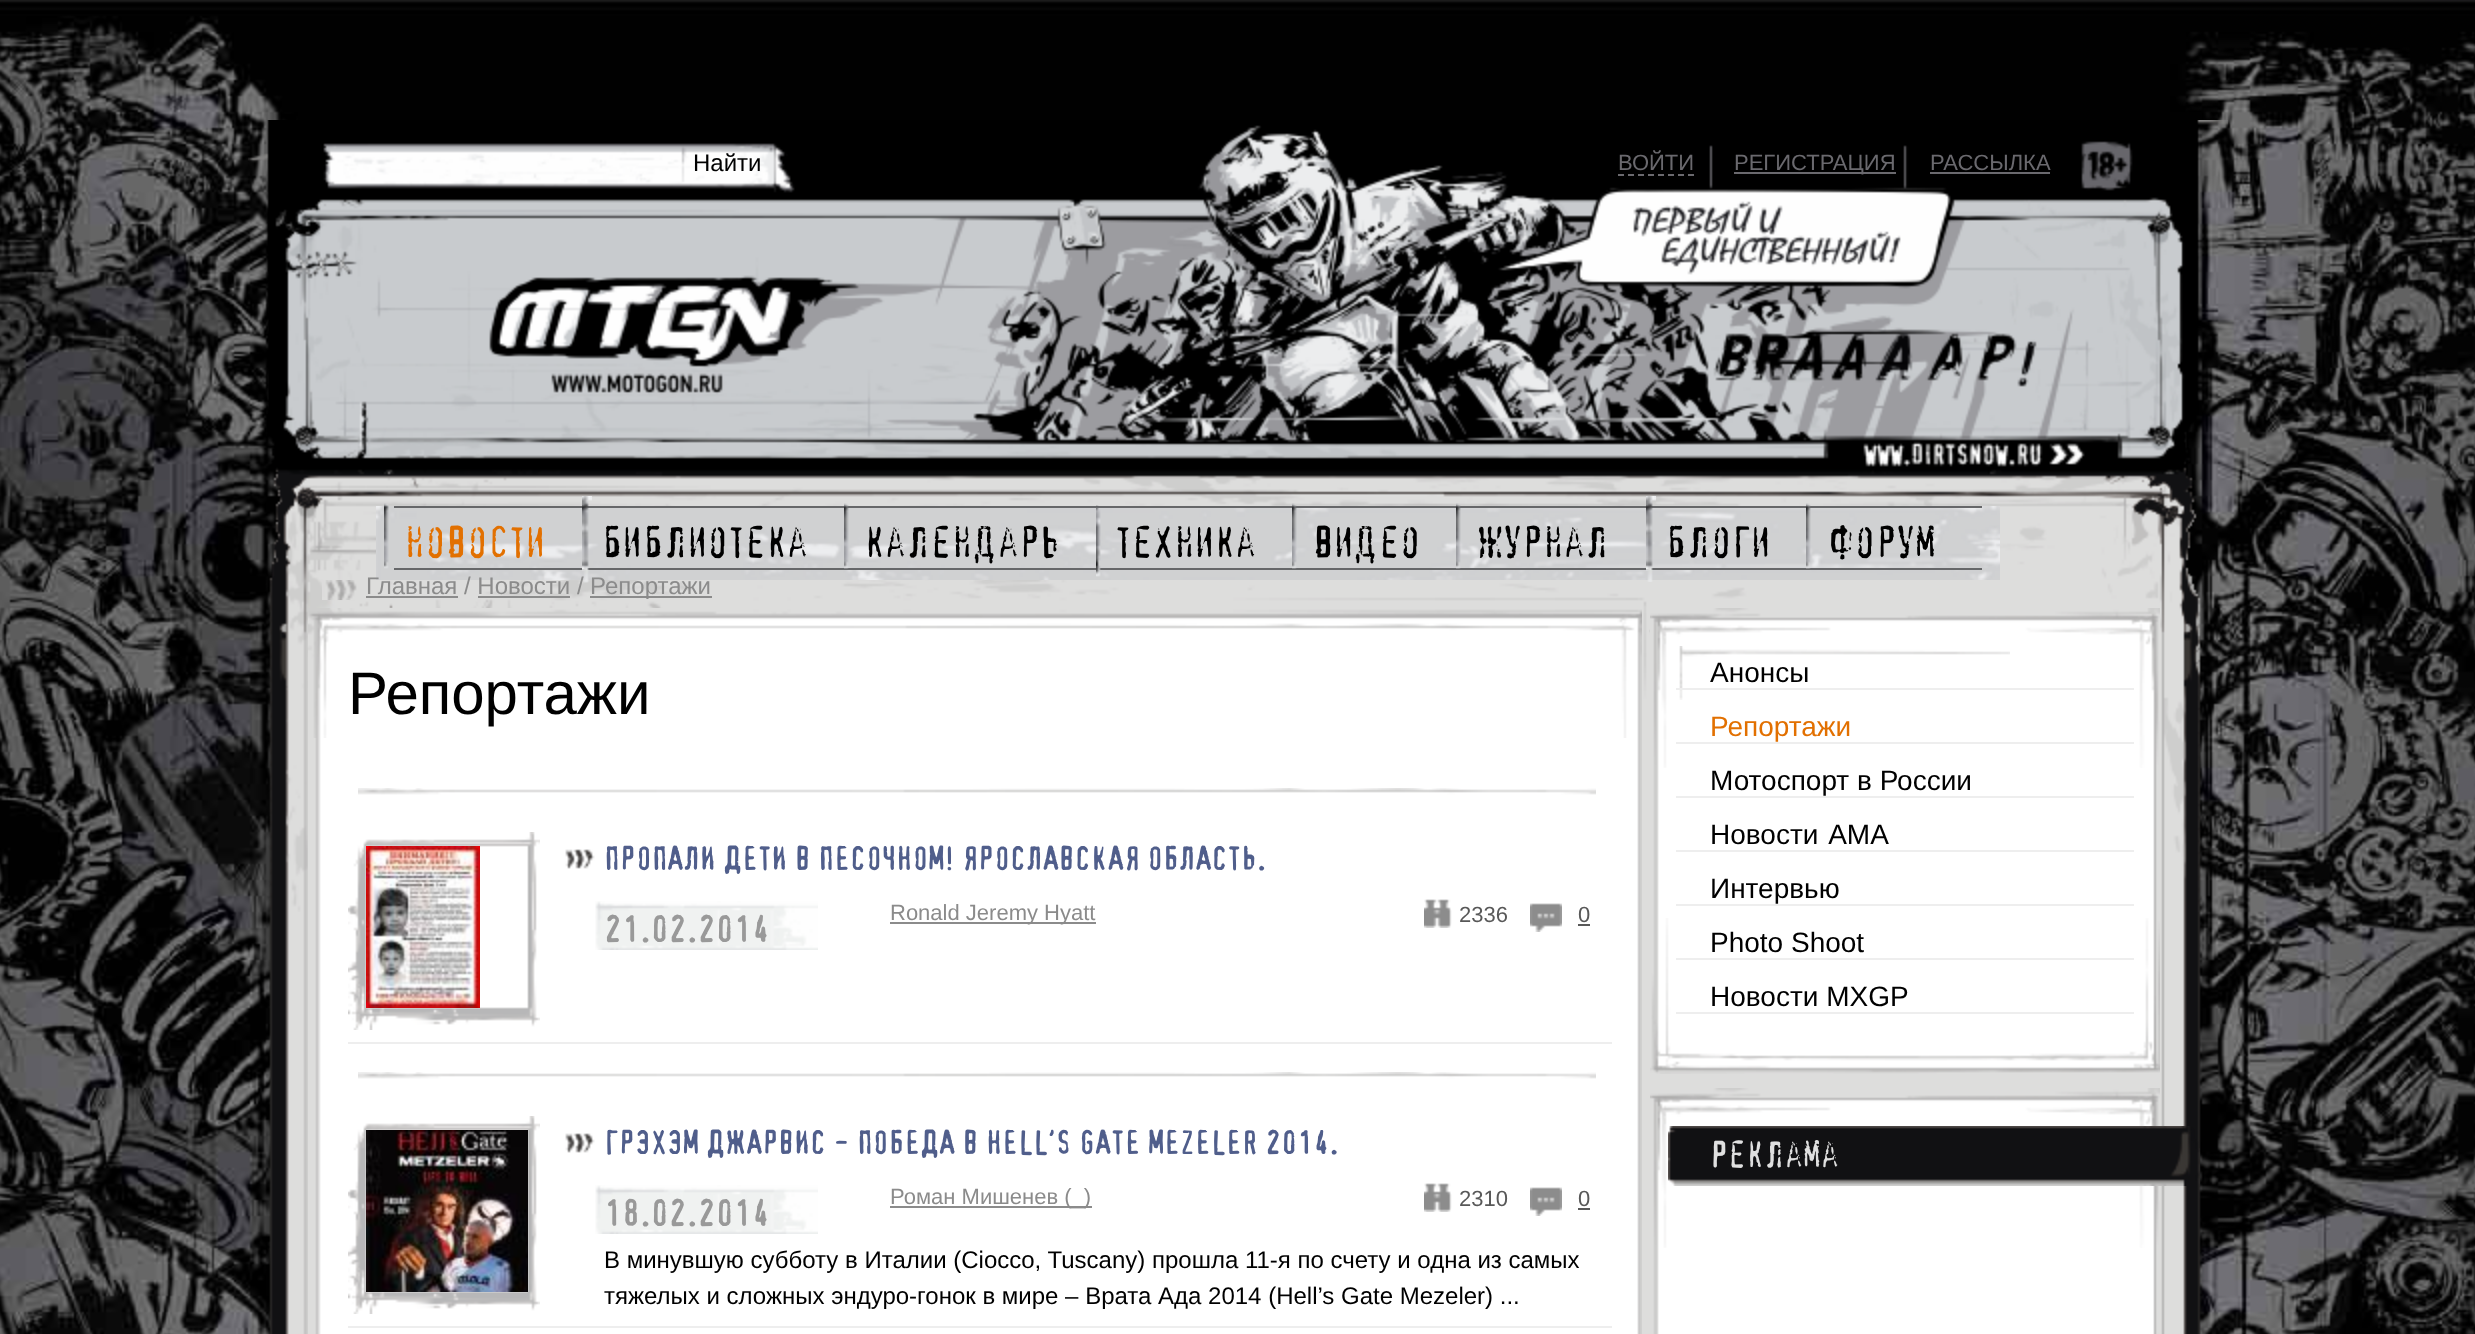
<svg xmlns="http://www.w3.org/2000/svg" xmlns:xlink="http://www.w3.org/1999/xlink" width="2475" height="1334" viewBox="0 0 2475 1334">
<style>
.cls-1{font:24px Liberation Sans;fill:#000000}
.cls-2{font:22px Liberation Sans;fill:#6a696e}
.cls-3{font:42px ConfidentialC;fill:#e27000}
.cls-4{font:42px ConfidentialC;fill:#000000}
.cls-5{font:24px Liberation Sans;fill:#8b8b8b}
.cls-6{font:60px Liberation Sans;fill:#000000}
.cls-7{font:32px ConfidentialC;fill:#505e8b}
.cls-8{font:36px ConfidentialC;fill:#999999}
.cls-9{font:22px Liberation Sans;fill:#8b8b8b}
.cls-10{font:22px Liberation Sans;fill:#585858}
.cls-11{font:28px Liberation Sans;fill:#000000}
.cls-12{font:28px Liberation Sans;fill:#e27000}
.cls-13{font:36px ConfidentialC;fill:#e0e0e0}
</style>
<rect width="100%" height="100%" fill="#ffffff"/>
<image xlink:href="image0.png" x="0" y="0" width="2475" height="1334"/>
<image xlink:href="image1.png" x="248" y="120" width="1980" height="792"/>
<path fill="none" stroke="#6a696e" stroke-width="2" stroke-dasharray="6 4" d="M1618 175H1694"/>
<rect fill="#6a696e" x="1734" y="172" width="162" height="2"/>
<rect fill="#6a696e" x="1930" y="172" width="120" height="2"/>
<image xlink:href="image2.png" x="376" y="506" width="1624" height="74"/>
<rect fill="#666769" x="394" y="506" width="1588" height="2"/>
<rect fill="#666769" x="394" y="568" width="1588" height="2"/>
<image xlink:href="image3.png" x="384" y="503" width="5" height="66"/>
<image xlink:href="image4.png" x="582" y="496" width="10" height="87"/>
<image xlink:href="image5.png" x="844" y="503" width="5" height="66"/>
<image xlink:href="image6.png" x="1096" y="505" width="5" height="72"/>
<image xlink:href="image7.png" x="1292" y="503" width="5" height="66"/>
<image xlink:href="image8.png" x="1456" y="503" width="5" height="66"/>
<image xlink:href="image9.png" x="1646" y="496" width="10" height="86"/>
<image xlink:href="image10.png" x="1806" y="503" width="5" height="66"/>
<image xlink:href="image11.png" x="269" y="912" width="1932" height="422"/>
<image xlink:href="image12.png" x="322" y="580" width="35" height="20"/>
<rect fill="#8b8b8b" x="366" y="596" width="92" height="2"/>
<rect fill="#8b8b8b" x="590" y="596" width="122" height="2"/>
<rect fill="#8b8b8b" x="478" y="596" width="92" height="2"/>
<image xlink:href="image13.png" x="308" y="738" width="1334" height="596"/>
<image xlink:href="image14.png" x="308" y="608" width="1334" height="130"/>
<image xlink:href="image15.png" x="358" y="788" width="1238" height="7"/>
<rect fill="#eeeeee" x="348" y="1042" width="1264" height="2"/>
<image xlink:href="image16.png" x="348" y="832" width="192" height="198"/>
<image xlink:href="image17.png" x="366" y="846" width="114" height="162"/>
<image xlink:href="image18.png" x="565" y="849" width="30" height="20"/>
<image xlink:href="image19.png" x="595" y="901" width="223" height="49"/>
<rect fill="#8b8b8b" x="890" y="922" width="206" height="2"/>
<image xlink:href="image20.png" x="1424" y="899" width="28" height="29"/>
<image xlink:href="image21.png" x="1530" y="903" width="32" height="29"/>
<rect fill="#585858" x="1578" y="924" width="12" height="2"/>
<image xlink:href="image15.png" x="358" y="1072" width="1238" height="7"/>
<rect fill="#eeeeee" x="348" y="1326" width="1264" height="2"/>
<image xlink:href="image16.png" x="348" y="1116" width="192" height="198"/>
<image xlink:href="image22.png" x="366" y="1130" width="162" height="162"/>
<image xlink:href="image18.png" x="565" y="1133" width="30" height="20"/>
<image xlink:href="image19.png" x="595" y="1185" width="223" height="49"/>
<rect fill="#8b8b8b" x="890" y="1206" width="202" height="2"/>
<image xlink:href="image20.png" x="1424" y="1183" width="28" height="29"/>
<image xlink:href="image21.png" x="1530" y="1187" width="32" height="29"/>
<rect fill="#585858" x="1578" y="1208" width="12" height="2"/>
<image xlink:href="image23.png" x="1650" y="768" width="507" height="150"/>
<image xlink:href="image24.png" x="1650" y="608" width="510" height="160"/>
<image xlink:href="image25.png" x="1650" y="918" width="510" height="156"/>
<image xlink:href="image26.png" x="1679" y="646" width="331" height="54"/>
<rect fill="#eeeeee" x="1676" y="688" width="458" height="2"/>
<rect fill="#eeeeee" x="1676" y="742" width="458" height="2"/>
<rect fill="#eeeeee" x="1676" y="796" width="458" height="2"/>
<rect fill="#eeeeee" x="1676" y="850" width="458" height="2"/>
<rect fill="#eeeeee" x="1676" y="904" width="458" height="2"/>
<rect fill="#eeeeee" x="1676" y="958" width="458" height="2"/>
<rect fill="#eeeeee" x="1676" y="1012" width="458" height="2"/>
<image xlink:href="image27.png" x="1653" y="1248" width="504" height="86"/>
<image xlink:href="image24.png" x="1650" y="1088" width="510" height="160"/>
<image xlink:href="image28.png" x="1668" y="1126" width="532" height="60"/>
<text class="cls-1" x="693" y="171">Найти</text>
<text class="cls-2" x="1618" y="170">ВОЙТИ</text>
<text class="cls-2" x="1734" y="170">РЕГИСТРАЦИЯ</text>
<text class="cls-2" x="1930" y="170">РАССЫЛКА</text>
<text class="cls-3" x="404" y="558">новости</text>
<text class="cls-4" x="601" y="558">библиотека</text>
<text class="cls-4" x="864" y="558">календарь</text>
<text class="cls-4" x="1115" y="558">техника</text>
<text class="cls-4" x="1313" y="558">видео</text>
<text class="cls-4" x="1476" y="558">журнал</text>
<text class="cls-4" x="1665" y="558">блоги</text>
<text class="cls-4" x="1827" y="558">форум</text>
<text class="cls-5" x="366" y="594">Главная / Новости /</text>
<text class="cls-5" x="590" y="594">Репортажи</text>
<text class="cls-6" x="348" y="714">Репортажи</text>
<text class="cls-7" x="604" y="870">ПРОПАЛИ ДЕТИ В ПЕСОЧНОМ! ЯРОСЛАВСКАЯ ОБЛАСТЬ.</text>
<text class="cls-8" x="604" y="942">21.02.2014</text>
<text class="cls-9" x="890" y="920">Ronald Jeremy Hyatt</text>
<text class="cls-10" x="1459" y="922">2336</text>
<text class="cls-10" x="1578" y="922">0</text>
<text class="cls-7" x="604" y="1154">ГРЭХЭМ ДЖАРВИС - ПОБЕДА В HELL’S GATE MEZELER 2014.</text>
<text class="cls-8" x="604" y="1226">18.02.2014</text>
<text class="cls-9" x="890" y="1204">Роман Мишенев (_)</text>
<text class="cls-10" x="1459" y="1206">2310</text>
<text class="cls-10" x="1578" y="1206">0</text>
<text class="cls-1"><tspan x="604" y="1268">В минувшую субботу в Италии (Ciocco, Tuscany) прошла 11-я по счету и одна из самых</tspan><tspan x="604" y="1304">тяжелых и сложных эндуро-гонок в мире – Врата Ада 2014 (Hell’s Gate Mezeler) ...</tspan></text>
<text class="cls-11" x="1710" y="682">Анонсы</text>
<text class="cls-12" x="1710" y="736">Репортажи</text>
<text class="cls-11"><tspan x="1710" y="790">Мотоспорт в России</tspan><tspan x="1710" y="844" word-spacing="2">Новости AMA</tspan><tspan x="1710" y="898">Интервью</tspan><tspan x="1710" y="952">Photo Shoot</tspan><tspan x="1710" y="1006">Новости MXGP</tspan></text>
<text class="cls-13" x="1710" y="1168">Реклама</text>
</svg>
